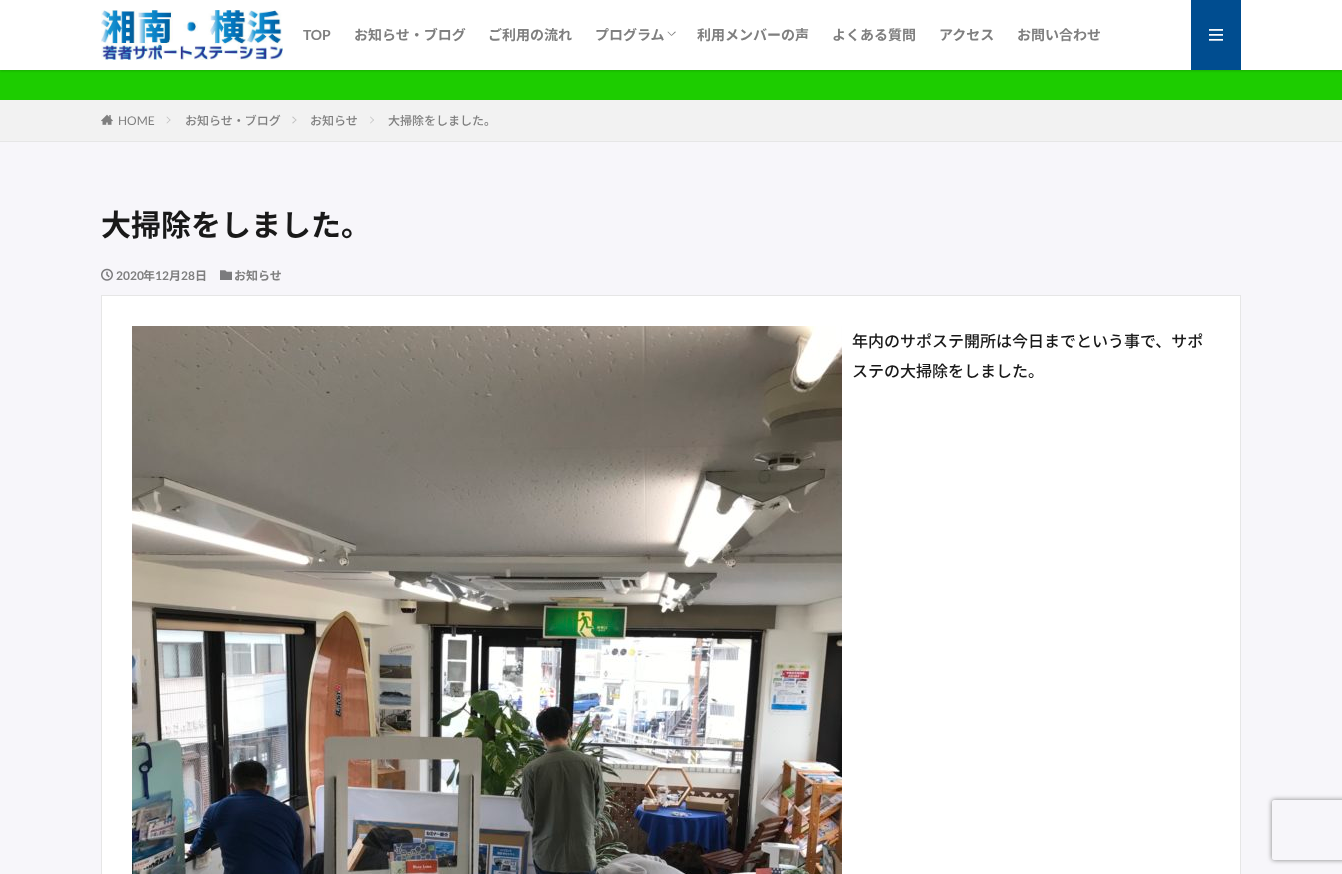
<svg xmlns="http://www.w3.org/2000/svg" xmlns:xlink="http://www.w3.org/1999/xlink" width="1342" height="874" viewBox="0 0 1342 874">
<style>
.cls-1{font:bold 14px Lato;fill:#7f7f7f}
.cls-2{font:bold 14px Noto Sans JP;fill:#7f7f7f}
.cls-3{font:12px Lato;fill:#7f7f7f}
.cls-4{font:500 12px Noto Sans JP;fill:#7f7f7f}
.cls-5{font:bold 30px Noto Sans JP;fill:#191919}
.cls-6{font:bold 12px Lato;fill:#7f7f7f}
.cls-7{font:bold 12px Noto Sans JP;fill:#7f7f7f}
.cls-8{font:500 16px Noto Sans JP;fill:#191919}
</style>
<defs>
<clipPath id="clip1"><path d="M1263 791H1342V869H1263ZM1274 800H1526C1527 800 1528 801 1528 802V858C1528 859 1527 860 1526 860H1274C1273 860 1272 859 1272 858V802C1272 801 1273 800 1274 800Z" clip-rule="evenodd"/></clipPath>
</defs>
<rect width="100%" height="100%" fill="#f7f6fa"/>
<rect fill="#1dcd00" x="0" y="70" width="1342" height="30"/>
<rect fill="#000000" fill-opacity="0.15" filter="blur(1px)" x="0" y="1" width="1342" height="70"/>
<rect fill="#ffffff" x="0" y="0" width="1342" height="70"/>
<image xlink:href="image0.png" x="101" y="10" width="182" height="50"/>
<path fill="#808080" d="M676 32L671.5 36V35L675 31.5Z"/>
<path fill="#000000" fill-opacity="0.5" d="M671.5 36L667.5 32L668 31.5L671.5 35Z"/>
<rect fill="#004d90" x="1191" y="0" width="50" height="70"/>
<image xlink:href="image1.png" x="1209" y="29" width="14" height="12"/>
<rect fill="#f2f2f2" x="0" y="100" width="1342" height="41"/>
<rect fill="#e6e6e6" x="0" y="141" width="1342" height="1"/>
<image xlink:href="image2.png" x="101" y="114" width="12" height="11"/>
<path fill="#bfbfbf" d="M167 116.5L170.5 120L170 120.5L166.5 117Z"/>
<path fill="#bfbfbf" d="M170 119.5L170.5 120L167 123.5L166.5 123Z"/>
<path fill="#bfbfbf" d="M293 116.5L296.5 120L296 120.5L292 117Z"/>
<path fill="#bfbfbf" d="M296 119.5L296.5 120L293 123.5L292 123Z"/>
<path fill="#bfbfbf" d="M370.5 116.5L374 120L373.5 120.5L370 117Z"/>
<path fill="#bfbfbf" d="M373.5 119.5L374 120L370.5 123.5L370 123Z"/>
<image xlink:href="image3.png" x="101" y="268" width="12" height="13"/>
<image xlink:href="image4.png" x="220" y="270" width="12" height="10"/>
<rect fill="#ffffff" stroke="#e6e6e6" x="101.5" y="295.5" width="1139" height="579"/>
<image xlink:href="image5.png" x="132" y="326" width="710" height="548"/>
<g clip-path="url(#clip1)">
<rect fill="#808080" filter="blur(2.5px)" x="1272" y="800" width="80" height="60" rx="2"/>
</g>
<text class="cls-1" x="303" y="40">TOP</text>
<text class="cls-2" x="354" y="40">お知らせ・ブログ</text>
<text class="cls-2" x="488" y="40">ご利用の流れ</text>
<text class="cls-2" x="595" y="40">プログラム</text>
<text class="cls-2" x="697" y="40">利用メンバーの声</text>
<text class="cls-2" x="832" y="40">よくある質問</text>
<text class="cls-2" x="939" y="40">アクセス</text>
<text class="cls-2" x="1017" y="40">お問い合わせ</text>
<text class="cls-3" x="118" y="125">HOME</text>
<text class="cls-4" x="185" y="125">お知らせ・ブログ</text>
<text class="cls-4" x="310" y="125">お知らせ</text>
<text class="cls-4" x="388" y="125">大掃除をしました。</text>
<text class="cls-5" x="101" y="236">大掃除をしました。</text>
<text class="cls-6" x="116" y="280">2020</text>
<text class="cls-7" x="143" y="280">年</text>
<text class="cls-6" x="155" y="280">12</text>
<text class="cls-7" x="169" y="280">月</text>
<text class="cls-6" x="181" y="280">28</text>
<text class="cls-7" x="195" y="280">日</text>
<text class="cls-7" x="234" y="280">お知らせ</text>
<text class="cls-8"><tspan x="852" y="347">年内のサポステ開所は今日までという事で、サポ</tspan><tspan x="852" y="377">ステの大掃除をしました。</tspan></text>
</svg>
